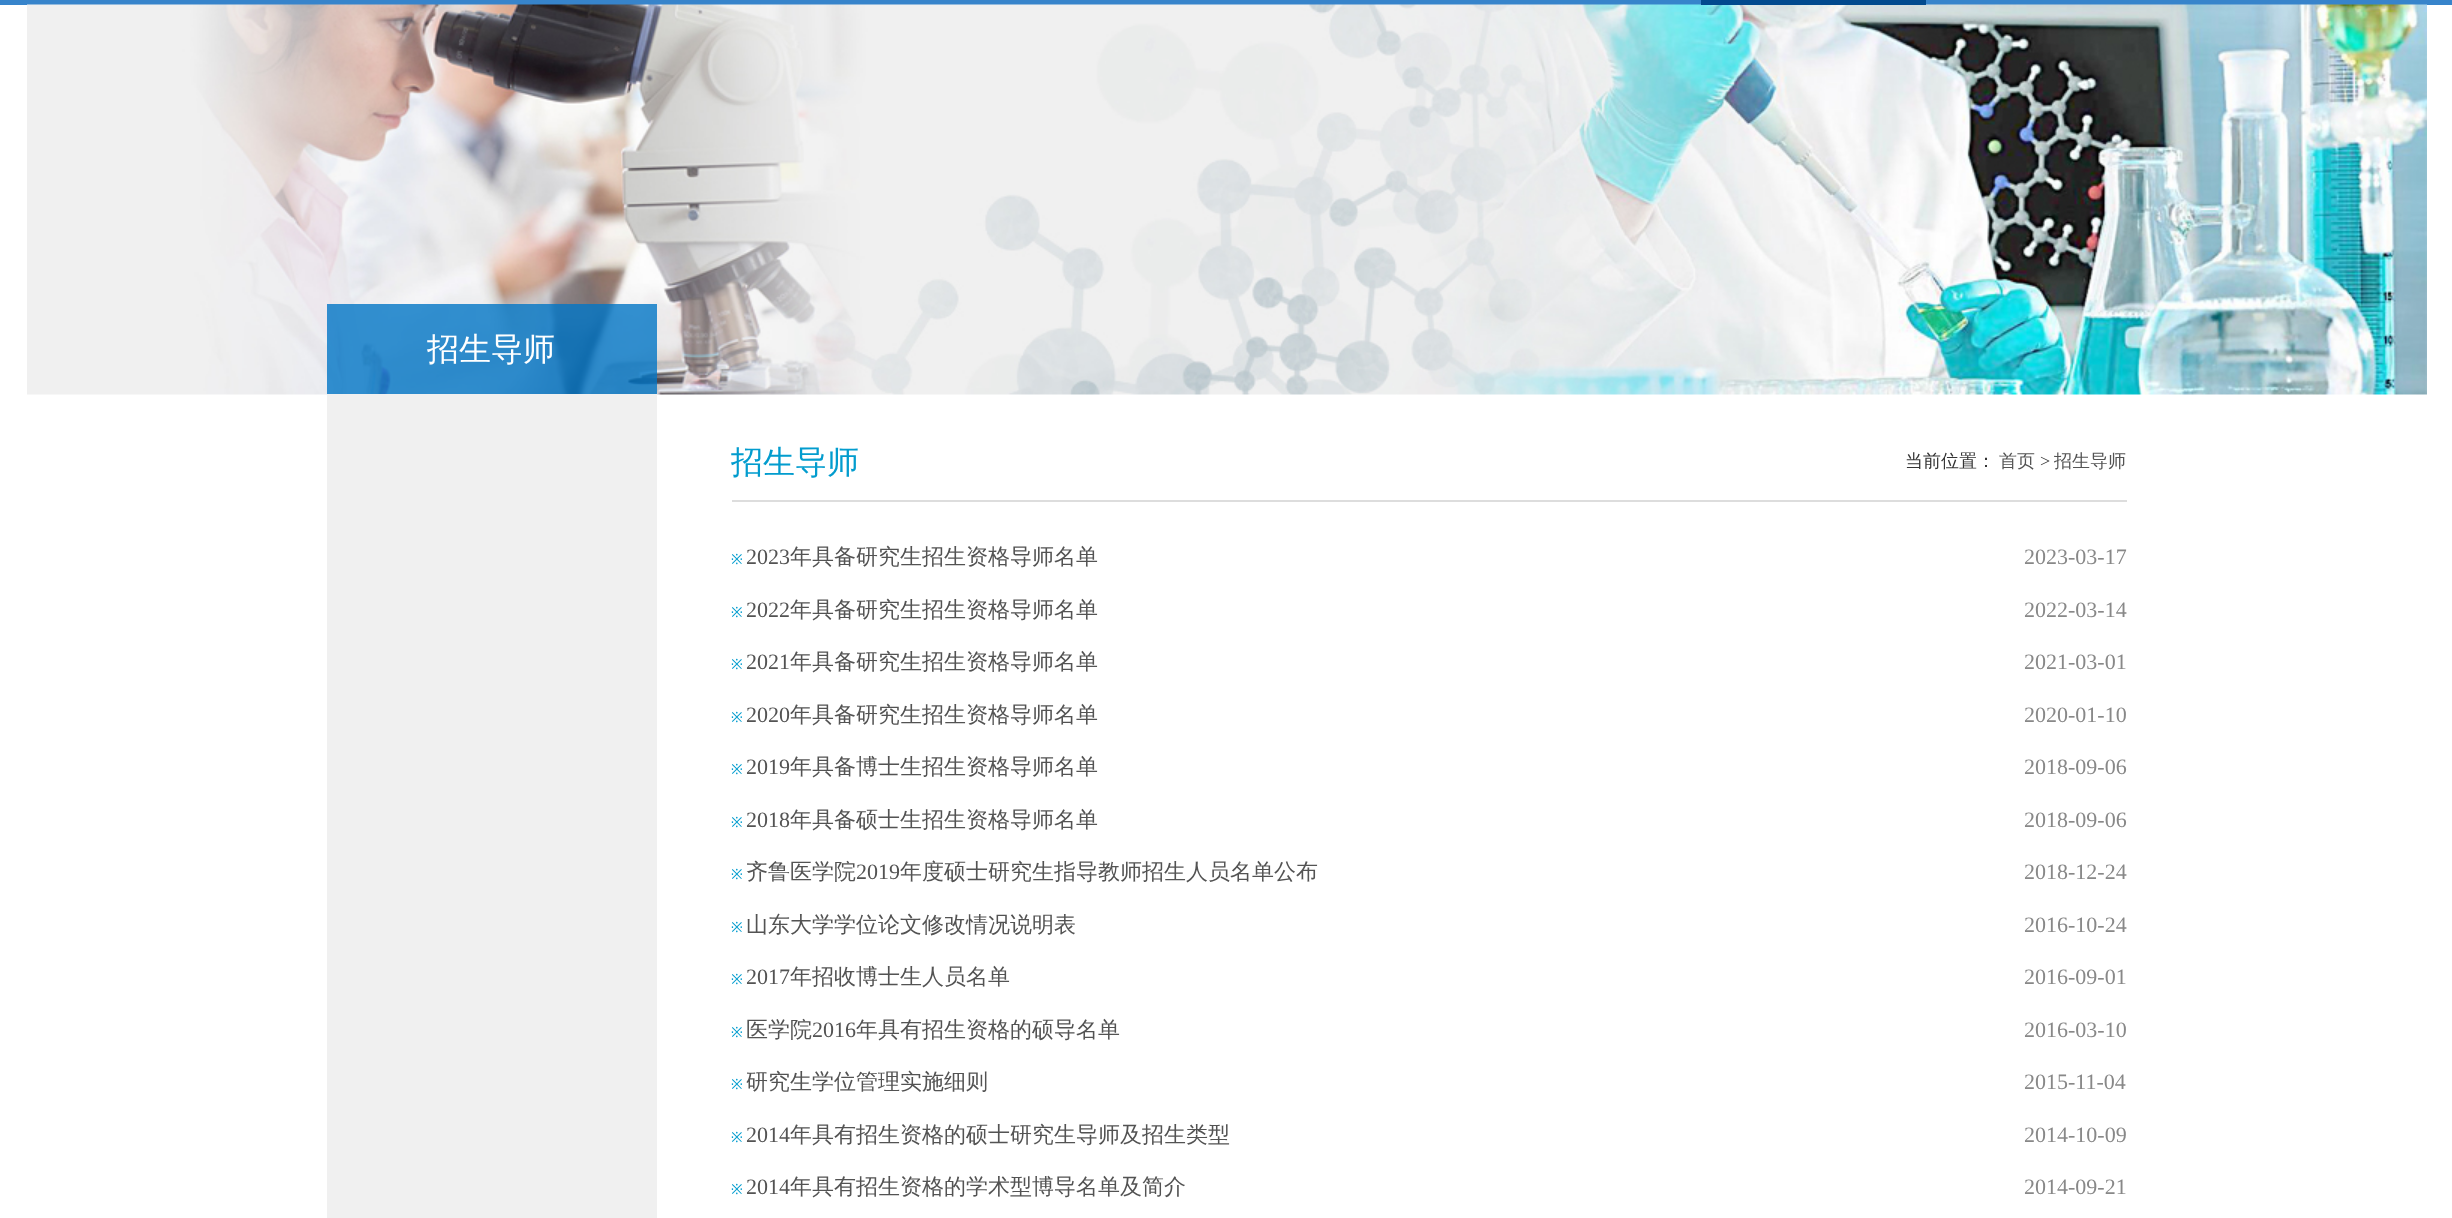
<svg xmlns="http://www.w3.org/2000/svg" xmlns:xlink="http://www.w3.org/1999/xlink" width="2452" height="1218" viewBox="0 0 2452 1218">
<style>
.cls-1{font:500 32px WenQuanYi Zen Hei;fill:#ffffff}
.cls-2{font:500 32px WenQuanYi Zen Hei;fill:#029cce}
.cls-3{font:500 18px WenQuanYi Zen Hei;fill:#333333}
.cls-4{font:500 18px WenQuanYi Zen Hei;fill:#535353}
.cls-5{font:18px Liberation Serif;fill:#333333}
.cls-6{font:14px Noto Sans;fill:#029cce}
.cls-7{font:22px Liberation Serif;fill:#535353}
.cls-8{font:500 22px WenQuanYi Zen Hei;fill:#535353}
.cls-9{font:22px Liberation Serif;fill:#888888}
</style>
<rect width="100%" height="100%" fill="#ffffff"/>
<rect fill="#3784cb" x="0" y="0" width="2452" height="5"/>
<image xlink:href="image0.png" x="27" y="4" width="2400" height="391"/>
<rect fill="#014a8e" x="1701" y="0" width="225" height="5"/>
<rect fill="#0175c6" fill-opacity="0.8" x="327" y="304" width="330" height="90"/>
<rect fill="#f0f0f0" x="327" y="394" width="330" height="824"/>
<rect fill="#dddddd" x="732" y="500" width="1395" height="2"/>
<text class="cls-1" x="427" y="360">招生导师</text>
<text class="cls-2" x="731" y="473">招生导师</text>
<text class="cls-3" x="1905" y="467">当前位置：</text>
<text class="cls-4" x="1999" y="467">首页</text>
<text class="cls-5" x="2040" y="467">&gt;</text>
<text class="cls-4" x="2054" y="467">招生导师</text>
<text class="cls-6" x="731" y="564">※</text>
<text class="cls-7" x="746" y="564">2023</text>
<text class="cls-8" x="790" y="564">年具备研究生招生资格导师名单</text>
<text class="cls-9" x="2024" y="564">2023-03-17</text>
<text class="cls-6" x="731" y="617">※</text>
<text class="cls-7" x="746" y="617">2022</text>
<text class="cls-8" x="790" y="617">年具备研究生招生资格导师名单</text>
<text class="cls-9" x="2024" y="617">2022-03-14</text>
<text class="cls-6" x="731" y="669">※</text>
<text class="cls-7" x="746" y="669">2021</text>
<text class="cls-8" x="790" y="669">年具备研究生招生资格导师名单</text>
<text class="cls-9" x="2024" y="669">2021-03-01</text>
<text class="cls-6" x="731" y="722">※</text>
<text class="cls-7" x="746" y="722">2020</text>
<text class="cls-8" x="790" y="722">年具备研究生招生资格导师名单</text>
<text class="cls-9" x="2024" y="722">2020-01-10</text>
<text class="cls-6" x="731" y="774">※</text>
<text class="cls-7" x="746" y="774">2019</text>
<text class="cls-8" x="790" y="774">年具备博士生招生资格导师名单</text>
<text class="cls-9" x="2024" y="774">2018-09-06</text>
<text class="cls-6" x="731" y="827">※</text>
<text class="cls-7" x="746" y="827">2018</text>
<text class="cls-8" x="790" y="827">年具备硕士生招生资格导师名单</text>
<text class="cls-9" x="2024" y="827">2018-09-06</text>
<text class="cls-6" x="731" y="879">※</text>
<text class="cls-8" x="746" y="879">齐鲁医学院</text>
<text class="cls-7" x="856" y="879">2019</text>
<text class="cls-8" x="900" y="879">年度硕士研究生指导教师招生人员名单公布</text>
<text class="cls-9" x="2024" y="879">2018-12-24</text>
<text class="cls-6" x="731" y="932">※</text>
<text class="cls-8" x="746" y="932">山东大学学位论文修改情况说明表</text>
<text class="cls-9" x="2024" y="932">2016-10-24</text>
<text class="cls-6" x="731" y="984">※</text>
<text class="cls-7" x="746" y="984">2017</text>
<text class="cls-8" x="790" y="984">年招收博士生人员名单</text>
<text class="cls-9" x="2024" y="984">2016-09-01</text>
<text class="cls-6" x="731" y="1037">※</text>
<text class="cls-8" x="746" y="1037">医学院</text>
<text class="cls-7" x="812" y="1037">2016</text>
<text class="cls-8" x="856" y="1037">年具有招生资格的硕导名单</text>
<text class="cls-9" x="2024" y="1037">2016-03-10</text>
<text class="cls-6" x="731" y="1089">※</text>
<text class="cls-8" x="746" y="1089">研究生学位管理实施细则</text>
<text class="cls-9" x="2024" y="1089">2015-11-04</text>
<text class="cls-6" x="731" y="1142">※</text>
<text class="cls-7" x="746" y="1142">2014</text>
<text class="cls-8" x="790" y="1142">年具有招生资格的硕士研究生导师及招生类型</text>
<text class="cls-9" x="2024" y="1142">2014-10-09</text>
<text class="cls-6" x="731" y="1194">※</text>
<text class="cls-7" x="746" y="1194">2014</text>
<text class="cls-8" x="790" y="1194">年具有招生资格的学术型博导名单及简介</text>
<text class="cls-9" x="2024" y="1194">2014-09-21</text>
</svg>
